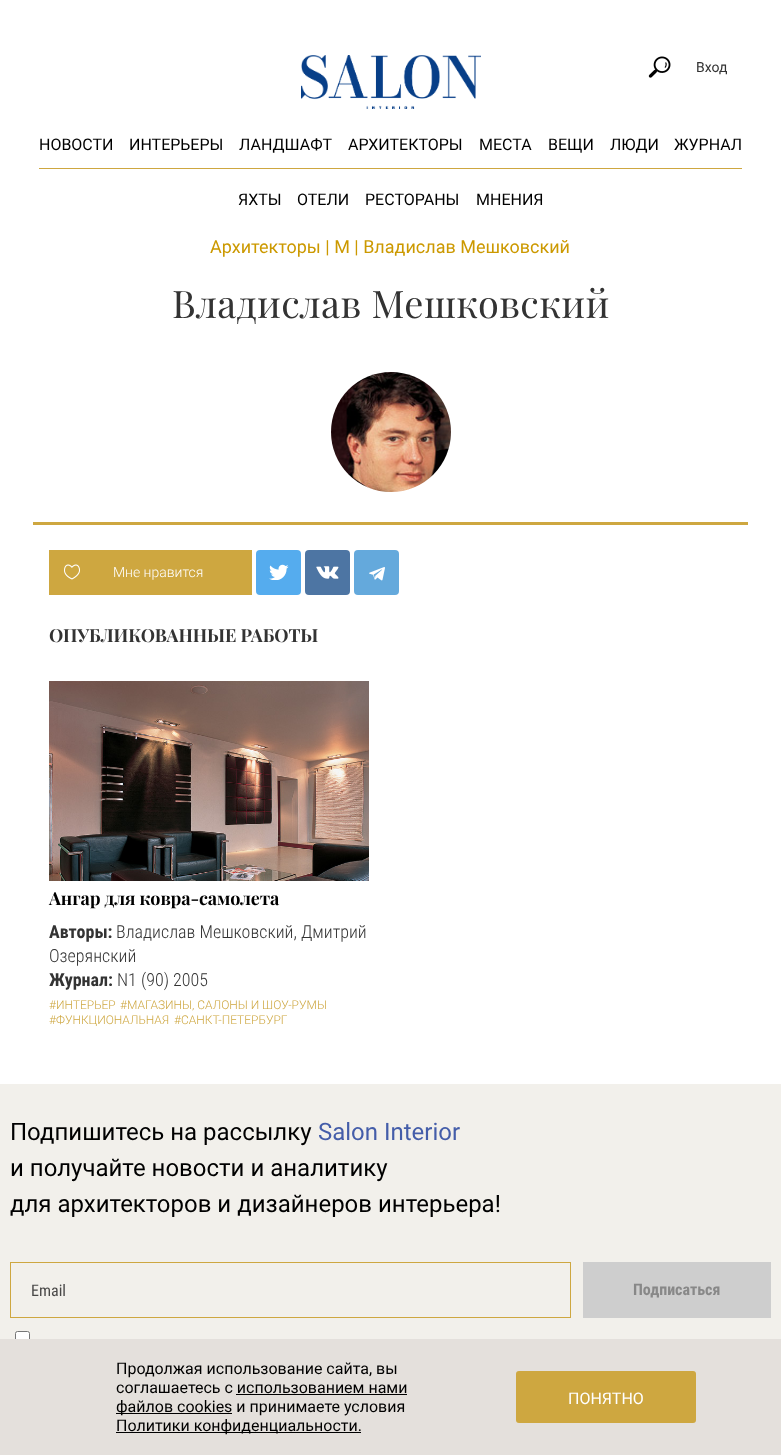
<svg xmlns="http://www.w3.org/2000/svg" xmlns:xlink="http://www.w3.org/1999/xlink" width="781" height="1455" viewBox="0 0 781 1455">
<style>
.cls-1{font:14px Roboto;fill:#333333}
.cls-2{font:16px Roboto;fill:#000000}
.cls-3{font:18px Roboto;fill:#cc9900}
.cls-4{font:38px Playfair Display;letter-spacing:0.4px;fill:#333333}
.cls-5{font:300 14px Roboto;fill:#ffffff}
.cls-6{font:bold 18px Playfair Display;letter-spacing:-0.1px;fill:#333333}
.cls-7{font:bold 18px Playfair Display;letter-spacing:-0.1px;fill:#000000}
.cls-8{font:bold 18px Roboto Condensed;fill:#333333}
.cls-9{font:300 18px Roboto Condensed;fill:#333333}
.cls-10{font:300 12px Roboto;fill:#cea740}
.cls-11{font:24px Roboto;fill:#000000}
.cls-12{font:24px Roboto;fill:#445da9}
.cls-13{font:16px Roboto Condensed;fill:#494847}
.cls-14{font:bold 16px Roboto Condensed;fill:#888888}
.cls-15{font:16px Roboto;fill:#ffffff}
</style>
<rect width="100%" height="100%" fill="#ffffff"/>
<image xlink:href="image0.png" x="301" y="55" width="180" height="54"/>
<image xlink:href="image1.png" x="648" y="56" width="23" height="22"/>
<rect fill="#cea740" x="39" y="168" width="703" height="1"/>
<rect fill="#cea740" x="33" y="522" width="715" height="3"/>
<image xlink:href="image2.png" x="331" y="372" width="120" height="120"/>
<rect fill="#cea740" x="49" y="550" width="203" height="45"/>
<image xlink:href="image3.png" x="64" y="564" width="16" height="16"/>
<rect fill="#55acee" x="256" y="550" width="45" height="45" rx="4"/>
<image xlink:href="image4.png" x="269" y="564" width="20" height="16"/>
<rect fill="#4d75a3" x="305" y="550" width="45" height="45" rx="4"/>
<image xlink:href="image5.png" x="316" y="566" width="23" height="13"/>
<rect fill="#64a9dc" x="354" y="550" width="45" height="45" rx="4"/>
<image xlink:href="image6.png" x="369" y="567" width="16" height="14"/>
<image xlink:href="image7.png" x="49" y="681" width="320" height="200"/>
<rect fill="#f2f0eb" x="0" y="1084" width="781" height="255"/>
<rect fill="none" stroke="#cea740" x="10.5" y="1262.5" width="560" height="55"/>
<rect fill="#cecece" x="583" y="1262" width="188" height="56"/>
<rect fill="#ffffff" stroke="#767676" x="15.5" y="1331.5" width="14" height="14" rx="2"/>
<rect fill="#e4e0dc" x="0" y="1339" width="781" height="116"/>
<rect fill="#000000" x="236" y="1394" width="171" height="1"/>
<rect fill="#000000" x="116" y="1413" width="116" height="1"/>
<rect fill="#000000" x="116" y="1432" width="245" height="1"/>
<rect fill="#cea740" x="516" y="1371" width="180" height="52" rx="3"/>
<text class="cls-1" x="696" y="72">Вход</text>
<text class="cls-2" x="39" y="150">НОВОСТИ</text>
<text class="cls-2" x="129" y="150">ИНТЕРЬЕРЫ</text>
<text class="cls-2" x="239" y="150">ЛАНДШАФТ</text>
<text class="cls-2" x="348" y="150">АРХИТЕКТОРЫ</text>
<text class="cls-2" x="479" y="150">МЕСТА</text>
<text class="cls-2" x="548" y="150">ВЕЩИ</text>
<text class="cls-2" x="610" y="150">ЛЮДИ</text>
<text class="cls-2" x="674" y="150">ЖУРНАЛ</text>
<text class="cls-2" x="238" y="205">ЯХТЫ</text>
<text class="cls-2" x="297" y="205">ОТЕЛИ</text>
<text class="cls-2" x="365" y="205">РЕСТОРАНЫ</text>
<text class="cls-2" x="476" y="205">МНЕНИЯ</text>
<text class="cls-3" x="210" y="253">Архитекторы | М | Владислав Мешковский</text>
<text class="cls-4" x="172" y="318">Владислав Мешковский</text>
<text class="cls-5" x="113" y="577">Мне нравится</text>
<text class="cls-6" x="49" y="642">ОПУБЛИКОВАННЫЕ РАБОТЫ</text>
<text class="cls-7" x="49" y="905">Ангар для ковра-самолета</text>
<text class="cls-8" x="49" y="938">Авторы:</text>
<text class="cls-9" x="116" y="938">Владислав Мешковский, Дмитрий</text>
<text class="cls-9" x="49" y="962">Озерянский</text>
<text class="cls-8" x="49" y="986">Журнал:</text>
<text class="cls-9" x="117" y="986">N1 (90) 2005</text>
<text class="cls-10" x="49" y="1009">#ИНТЕРЬЕР</text>
<text class="cls-10" x="120" y="1009">#МАГАЗИНЫ, САЛОНЫ И ШОУ-РУМЫ</text>
<text class="cls-10" x="49" y="1024">#ФУНКЦИОНАЛЬНАЯ</text>
<text class="cls-10" x="174" y="1024">#САНКТ-ПЕТЕРБУРГ</text>
<text class="cls-11" x="10" y="1140">Подпишитесь на рассылку</text>
<text class="cls-12" x="318" y="1140">Salon Interior</text>
<text class="cls-11"><tspan x="10" y="1176">и получайте новости и аналитику</tspan><tspan x="10" y="1212">для архитекторов и дизайнеров интерьера!</tspan></text>
<text class="cls-13" x="31" y="1296">Email</text>
<text class="cls-14" x="633" y="1295">Подписаться</text>
<text class="cls-2"><tspan x="116" y="1374">Продолжая использование сайта, вы</tspan><tspan x="116" y="1393">соглашаетесь c использованием нами</tspan><tspan x="116" y="1412">файлов cookies и принимаете условия</tspan><tspan x="116" y="1431">Политики конфиденциальности.</tspan></text>
<text class="cls-15" x="568" y="1404">ПОНЯТНО</text>
</svg>
